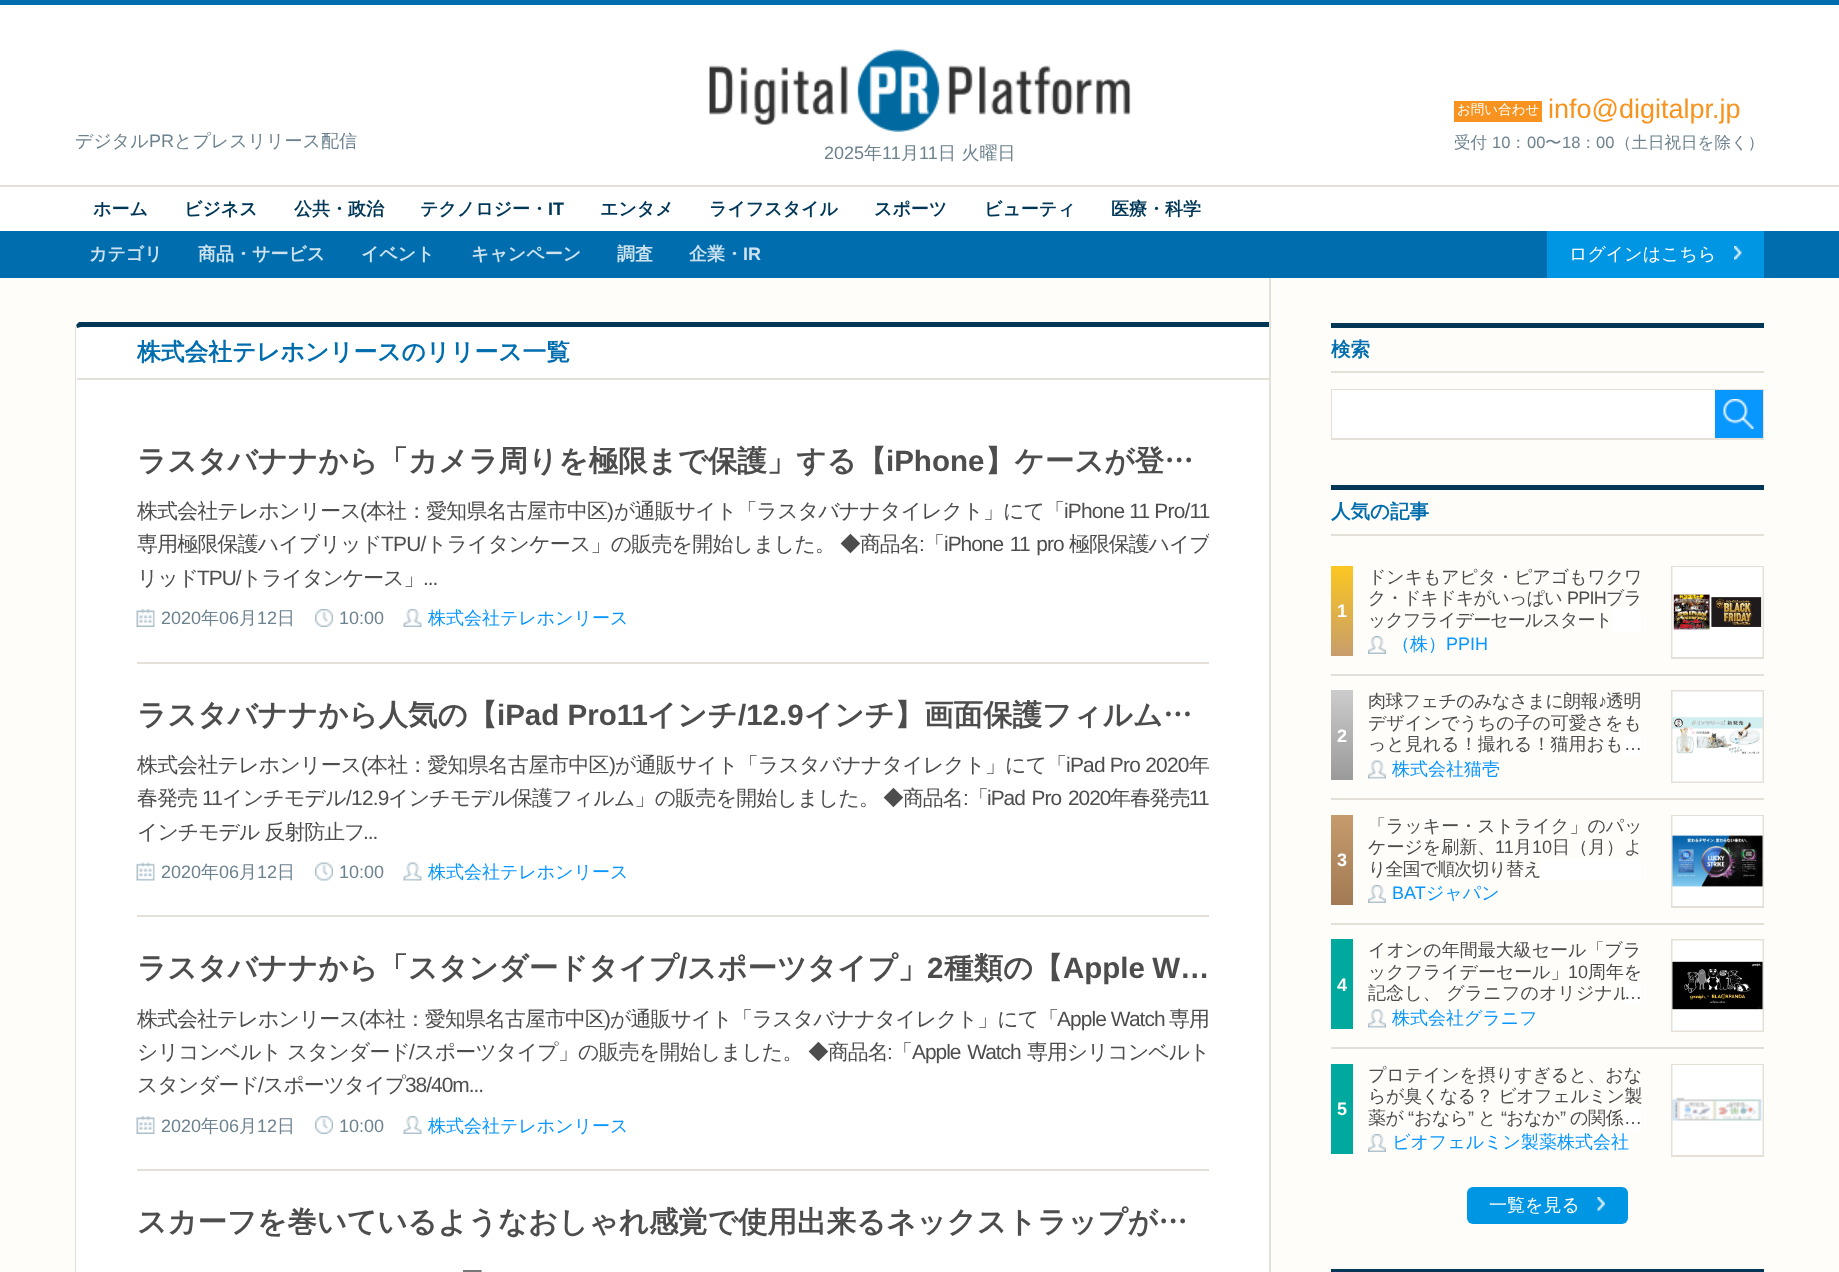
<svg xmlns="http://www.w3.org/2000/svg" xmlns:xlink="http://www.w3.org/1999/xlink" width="1839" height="1272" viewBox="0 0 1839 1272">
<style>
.cls-1{font:500 18px WenQuanYi Zen Hei;fill:#6d828f}
.cls-2{font:18px Liberation Sans;fill:#6d828f}
.cls-3{font:500 13.5px WenQuanYi Zen Hei;fill:#ffffff}
.cls-4{font:27px Liberation Sans;fill:#f7931e}
.cls-5{font:500 16.5px WenQuanYi Zen Hei;fill:#6d828f}
.cls-6{font:16.5px Liberation Sans;fill:#6d828f}
.cls-7{font:bold 18px WenQuanYi Zen Hei;fill:#003757}
.cls-8{font:bold 18px Liberation Sans;fill:#003757}
.cls-9{font:bold 18px WenQuanYi Zen Hei;fill:#cce2ef}
.cls-10{font:bold 18px Liberation Sans;fill:#cce2ef}
.cls-11{font:500 18px WenQuanYi Zen Hei;fill:#ffffff}
.cls-12{font:bold 23.75px WenQuanYi Zen Hei;fill:#006dae}
.cls-13{font:bold 29.5px WenQuanYi Zen Hei;fill:#4d4d4d}
.cls-14{font:bold 29.5px Liberation Sans;fill:#4d4d4d}
.cls-15{font:500 20.9px WenQuanYi Zen Hei;letter-spacing:-0.8px;fill:#4d4d4d}
.cls-16{font:20.9px Liberation Sans;letter-spacing:-0.8px;fill:#4d4d4d}
.cls-17{font:500 20.9px WenQuanYi Zen Hei;letter-spacing:-0.75px;fill:#4d4d4d}
.cls-18{font:20.9px Liberation Sans;letter-spacing:-0.75px;fill:#4d4d4d}
.cls-19{font:500 20.9px WenQuanYi Zen Hei;letter-spacing:-1px;fill:#4d4d4d}
.cls-20{font:20.9px Liberation Sans;letter-spacing:-1px;fill:#4d4d4d}
.cls-21{font:500 18px WenQuanYi Zen Hei;fill:#0896ff}
.cls-22{font:500 20.9px WenQuanYi Zen Hei;letter-spacing:-0.9px;fill:#4d4d4d}
.cls-23{font:20.9px Liberation Sans;letter-spacing:-0.9px;fill:#4d4d4d}
.cls-24{font:bold 19.5px WenQuanYi Zen Hei;fill:#006dae}
.cls-25{font:bold 18px Liberation Sans;fill:#ffffff}
.cls-26{font:500 18px WenQuanYi Zen Hei;letter-spacing:-0.1px;fill:#4d4d4d}
.cls-27{font:500 18px WenQuanYi Zen Hei;letter-spacing:-0.75px;fill:#4d4d4d}
.cls-28{font:18px Liberation Sans;letter-spacing:-0.75px;fill:#4d4d4d}
.cls-29{font:500 18px WenQuanYi Zen Hei;letter-spacing:-0.9px;fill:#4d4d4d}
.cls-30{font:18px Liberation Sans;fill:#0896ff}
.cls-31{font:500 18px WenQuanYi Zen Hei;letter-spacing:-0.6px;fill:#4d4d4d}
.cls-32{font:18px Liberation Sans;letter-spacing:-0.6px;fill:#4d4d4d}
.cls-33{font:500 18px WenQuanYi Zen Hei;fill:#4d4d4d}
.cls-34{font:18px Liberation Sans;letter-spacing:-0.9px;fill:#4d4d4d}
.cls-35{font:18px Liberation Sans;fill:#4d4d4d}
.cls-36{font:18px Liberation Sans;letter-spacing:-0.1px;fill:#4d4d4d}
.cls-37{font:500 18px WenQuanYi Zen Hei;letter-spacing:0.1px;fill:#4d4d4d}
.cls-38{font:500 18px WenQuanYi Zen Hei;letter-spacing:-0.4px;fill:#4d4d4d}
.cls-39{font:18px Liberation Sans;letter-spacing:-0.4px;fill:#4d4d4d}
</style>
<defs>
<linearGradient id="g1" gradientUnits="userSpaceOnUse" x1="1342" y1="566" x2="1342" y2="656"><stop offset="0" stop-color="#fcc721"/><stop offset="1" stop-color="#c79d6c"/></linearGradient>
<linearGradient id="g2" gradientUnits="userSpaceOnUse" x1="1342" y1="690" x2="1342" y2="780"><stop offset="0" stop-color="#cccccc"/><stop offset="1" stop-color="#9a9a9a"/></linearGradient>
<linearGradient id="g3" gradientUnits="userSpaceOnUse" x1="1342" y1="815" x2="1342" y2="905"><stop offset="0" stop-color="#c69c6d"/><stop offset="1" stop-color="#a17953"/></linearGradient>
<clipPath id="clip1"><rect x="137" y="494" width="1072" height="100"/></clipPath>
</defs>
<rect width="100%" height="100%" fill="#ffffff"/>
<rect fill="#006dae" x="0" y="0" width="1839" height="5"/>
<rect fill="#f7931e" x="1454" y="101" width="88" height="21"/>
<image xlink:href="image0.png" x="709" y="49" width="422" height="83"/>
<rect fill="#006dae" x="0" y="231" width="1839" height="47"/>
<rect fill="#e5e0d7" x="0" y="185" width="1839" height="2"/>
<rect fill="#0096e3" x="1547" y="231" width="217" height="47"/>
<image xlink:href="image1.png" x="1734" y="246" width="8" height="14"/>
<rect fill="#fefdfa" x="0" y="278" width="1839" height="994"/>
<path fill="#ffffff" d="M81 323H1269V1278H81C77.5 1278 75 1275.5 75 1272V329C75 325.5 77.5 323 81 323Z"/>
<path fill="#003757" d="M81 327L77 328L76 325L79 322H1269V327Z"/>
<path fill="#e5e0d7" d="M75 328V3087C75 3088 76 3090 77 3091L78 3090L76 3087V328H77L76 325Z"/>
<rect fill="#e5e0d7" x="77" y="378" width="1192" height="2"/>
<image xlink:href="image2.png" x="136" y="609" width="19" height="18"/>
<image xlink:href="image3.png" x="315" y="609" width="18" height="18"/>
<image xlink:href="image4.png" x="403" y="609" width="19" height="18"/>
<rect fill="#e5e0d7" x="137" y="662" width="1072" height="2"/>
<image xlink:href="image5.png" x="136" y="862" width="19" height="19"/>
<image xlink:href="image6.png" x="315" y="862" width="18" height="19"/>
<image xlink:href="image7.png" x="403" y="862" width="19" height="19"/>
<rect fill="#e5e0d7" x="137" y="915" width="1072" height="2"/>
<image xlink:href="image2.png" x="136" y="1116" width="19" height="18"/>
<image xlink:href="image3.png" x="315" y="1116" width="18" height="18"/>
<image xlink:href="image4.png" x="403" y="1116" width="19" height="18"/>
<rect fill="#e5e0d7" x="137" y="1169" width="1072" height="2"/>
<rect fill="#e5e0d7" x="1269" y="278" width="2" height="994"/>
<rect fill="#003757" x="1331" y="323" width="433" height="5"/>
<rect fill="#e5e0d7" x="1331" y="371" width="433" height="2"/>
<rect fill="none" stroke="#e5e0d7" stroke-width="2" x="1332" y="390" width="431" height="49"/>
<rect fill="#ffffff" x="1332" y="390" width="383" height="48"/>
<rect fill="#0896ff" x="1715" y="390" width="48" height="48"/>
<image xlink:href="image8.png" x="1723" y="399" width="31" height="30"/>
<rect fill="#003757" x="1331" y="485" width="433" height="5"/>
<rect fill="#e5e0d7" x="1331" y="534" width="433" height="2"/>
<rect fill="url(#g1)" x="1331" y="566" width="22" height="90"/>
<rect fill="#ffffff" x="1613" y="609" width="28" height="23"/>
<rect fill="none" stroke="#e5e0d7" stroke-width="2" x="1672" y="567" width="91" height="91"/>
<image xlink:href="image9.png" x="1672" y="567" width="91" height="90"/>
<image xlink:href="image10.png" x="1368" y="636" width="18" height="18"/>
<rect fill="#e5e0d7" x="1331" y="674" width="433" height="2"/>
<rect fill="url(#g2)" x="1331" y="690" width="22" height="90"/>
<rect fill="#ffffff" x="1625" y="734" width="16" height="22"/>
<rect fill="none" stroke="#e5e0d7" stroke-width="2" x="1672" y="691" width="91" height="91"/>
<image xlink:href="image11.png" x="1672" y="691" width="91" height="91"/>
<image xlink:href="image12.png" x="1368" y="760" width="18" height="19"/>
<rect fill="#e5e0d7" x="1331" y="798" width="433" height="2"/>
<rect fill="url(#g3)" x="1331" y="815" width="22" height="90"/>
<rect fill="#ffffff" x="1541" y="858" width="100" height="23"/>
<rect fill="none" stroke="#e5e0d7" stroke-width="2" x="1672" y="816" width="91" height="91"/>
<image xlink:href="image13.png" x="1672" y="816" width="91" height="90"/>
<image xlink:href="image10.png" x="1368" y="885" width="18" height="18"/>
<rect fill="#e5e0d7" x="1331" y="923" width="433" height="2"/>
<rect fill="#00a99d" x="1331" y="939" width="22" height="90"/>
<rect fill="none" stroke="#e5e0d7" stroke-width="2" x="1672" y="940" width="91" height="91"/>
<image xlink:href="image14.png" x="1672" y="940" width="91" height="91"/>
<image xlink:href="image12.png" x="1368" y="1009" width="18" height="19"/>
<rect fill="#e5e0d7" x="1331" y="1047" width="433" height="2"/>
<rect fill="#00a99d" x="1331" y="1064" width="22" height="90"/>
<rect fill="#ffffff" x="1625" y="1107" width="16" height="23"/>
<rect fill="none" stroke="#e5e0d7" stroke-width="2" x="1672" y="1065" width="91" height="91"/>
<image xlink:href="image15.png" x="1672" y="1065" width="91" height="90"/>
<image xlink:href="image10.png" x="1368" y="1134" width="18" height="18"/>
<rect fill="#0096e3" x="1467" y="1187" width="161" height="37" rx="6"/>
<image xlink:href="image16.png" x="1597" y="1197" width="8" height="14"/>
<rect fill="#003757" x="1331" y="1269" width="433" height="3"/>
<text class="cls-1" x="75" y="147">デジタル</text>
<text class="cls-2" x="149" y="147">PR</text>
<text class="cls-1" x="174" y="147">とプレスリリース配信</text>
<text class="cls-3" x="1457" y="114">お問い合わせ</text>
<text class="cls-4" x="1548" y="118">info@digitalpr.jp</text>
<text class="cls-5" x="1454" y="148">受付</text>
<text class="cls-6" x="1492" y="148">10</text>
<text class="cls-5" x="1510" y="148">：</text>
<text class="cls-6" x="1527" y="148">00</text>
<text class="cls-5" x="1545" y="148">〜</text>
<text class="cls-6" x="1562" y="148">18</text>
<text class="cls-5" x="1580" y="148">：</text>
<text class="cls-6" x="1596" y="148">00</text>
<text class="cls-5" x="1615" y="148">（土日祝日を除く）</text>
<text class="cls-2" x="824" y="159">2025</text>
<text class="cls-1" x="864" y="159">年</text>
<text class="cls-2" x="882" y="159">11</text>
<text class="cls-1" x="901" y="159">月</text>
<text class="cls-2" x="919" y="159">11</text>
<text class="cls-1" x="938" y="159">日 火曜日</text>
<text class="cls-7" x="93" y="215">ホーム</text>
<text class="cls-7" x="184" y="215">ビジネス</text>
<text class="cls-7" x="294" y="215">公共・政治</text>
<text class="cls-7" x="420" y="215">テクノロジー・</text>
<text class="cls-8" x="548" y="215">IT</text>
<text class="cls-7" x="600" y="215">エンタメ</text>
<text class="cls-7" x="709" y="215">ライフスタイル</text>
<text class="cls-7" x="874" y="215">スポーツ</text>
<text class="cls-7" x="984" y="215">ビューティ</text>
<text class="cls-7" x="1111" y="215">医療・科学</text>
<text class="cls-9" x="89" y="260">カテゴリ</text>
<text class="cls-9" x="198" y="260">商品・サービス</text>
<text class="cls-9" x="361" y="260">イベント</text>
<text class="cls-9" x="471" y="260">キャンペーン</text>
<text class="cls-9" x="617" y="260">調査</text>
<text class="cls-9" x="689" y="260">企業・</text>
<text class="cls-10" x="743" y="260">IR</text>
<text class="cls-11" x="1569" y="260">ログインはこちら</text>
<text class="cls-12" x="137" y="360">株式会社テレホンリースのリリース一覧</text>
<text class="cls-13" x="137" y="471">ラスタバナナから「カメラ周りを極限まで保護」する【</text>
<text class="cls-14" x="886" y="471">iPhone</text>
<text class="cls-13" x="985" y="471">】ケースが登…</text>
<text class="cls-15" x="137" y="518">株式会社テレホンリース</text>
<text class="cls-16" x="360" y="518">(</text>
<text class="cls-15" x="366" y="518">本社：愛知県名古屋市中区</text>
<text class="cls-16" x="607" y="518">)</text>
<text class="cls-15" x="614" y="518">が通販サイト「ラスタバナナタイレクト」にて「</text>
<text class="cls-16" x="1064" y="518">iPhone 11 Pro/11</text>
<text class="cls-17" x="137" y="551">専用極限保護ハイブリッド</text>
<text class="cls-18" x="381" y="551">TPU/</text>
<text class="cls-17" x="426" y="551">トライタンケース」の販売を開始しました。</text>
<text class="cls-19" x="840" y="551">◆商品名</text>
<text class="cls-20" x="919" y="551">:</text>
<text class="cls-19" x="924" y="551">「</text>
<text class="cls-20" x="944" y="551" word-spacing="2">iPhone 11 pro</text>
<g clip-path="url(#clip1)">
<text class="cls-19" x="1069" y="551">極限保護ハイブ</text>
</g>
<text class="cls-19" x="137" y="585">リッド</text>
<text class="cls-20" x="197" y="585">TPU/</text>
<text class="cls-19" x="241" y="585">トライタンケース」</text>
<text class="cls-20" x="423" y="585">...</text>
<text class="cls-2" x="161" y="624">2020</text>
<text class="cls-1" x="201" y="624">年</text>
<text class="cls-2" x="219" y="624">06</text>
<text class="cls-1" x="239" y="624">月</text>
<text class="cls-2" x="257" y="624">12</text>
<text class="cls-1" x="277" y="624">日</text>
<text class="cls-2" x="339" y="624">10:00</text>
<text class="cls-21" x="428" y="624">株式会社テレホンリース</text>
<text class="cls-13" x="137" y="725">ラスタバナナから人気の【</text>
<text class="cls-14" x="497" y="725">iPad Pro11</text>
<text class="cls-13" x="647" y="725">インチ</text>
<text class="cls-14" x="738" y="725">/12.9</text>
<text class="cls-13" x="804" y="725">インチ】画面保護フィルム…</text>
<text class="cls-17" x="137" y="772">株式会社テレホンリース</text>
<text class="cls-18" x="361" y="772">(</text>
<text class="cls-17" x="367" y="772">本社：愛知県名古屋市中区</text>
<text class="cls-18" x="609" y="772">)</text>
<text class="cls-17" x="615" y="772">が通販サイト「ラスタバナナタイレクト」にて「</text>
<text class="cls-18" x="1066" y="772">iPad Pro 2020</text>
<text class="cls-17" x="1189" y="772">年</text>
<text class="cls-17" x="137" y="805">春発売</text>
<text class="cls-18" x="202" y="805">11</text>
<text class="cls-17" x="222" y="805">インチモデル</text>
<text class="cls-18" x="346" y="805">/12.9</text>
<text class="cls-17" x="388" y="805">インチモデル保護フィルム」の販売を開始しました。</text>
<text class="cls-19" x="883" y="805">◆商品名</text>
<text class="cls-20" x="963" y="805">:</text>
<text class="cls-19" x="968" y="805">「</text>
<text class="cls-20" x="987" y="805" word-spacing="2">iPad Pro 2020</text>
<text class="cls-19" x="1110" y="805">年春発売</text>
<text class="cls-20" x="1189" y="805">11</text>
<text class="cls-19" x="137" y="839">インチモデル 反射防止フ</text>
<text class="cls-20" x="363" y="839">...</text>
<text class="cls-2" x="161" y="878">2020</text>
<text class="cls-1" x="201" y="878">年</text>
<text class="cls-2" x="219" y="878">06</text>
<text class="cls-1" x="239" y="878">月</text>
<text class="cls-2" x="257" y="878">12</text>
<text class="cls-1" x="277" y="878">日</text>
<text class="cls-2" x="339" y="878">10:00</text>
<text class="cls-21" x="428" y="878">株式会社テレホンリース</text>
<text class="cls-13" x="137" y="978">ラスタバナナから「スタンダードタイプ</text>
<text class="cls-14" x="679" y="978">/</text>
<text class="cls-13" x="687" y="978">スポーツタイプ」</text>
<text class="cls-14" x="927" y="978">2</text>
<text class="cls-13" x="944" y="978">種類の【</text>
<text class="cls-14" x="1063" y="978" word-spacing="-1">Apple W…</text>
<text class="cls-22" x="137" y="1026">株式会社テレホンリース</text>
<text class="cls-23" x="359" y="1026">(</text>
<text class="cls-22" x="365" y="1026">本社：愛知県名古屋市中区</text>
<text class="cls-23" x="604" y="1026">)</text>
<text class="cls-22" x="610" y="1026">が通販サイト「ラスタバナナタイレクト」にて「</text>
<text class="cls-23" x="1057" y="1026">Apple Watch</text>
<text class="cls-22" x="1169" y="1026">専用</text>
<text class="cls-17" x="137" y="1059">シリコンベルト スタンダード</text>
<text class="cls-18" x="409" y="1059">/</text>
<text class="cls-17" x="414" y="1059">スポーツタイプ」の販売を開始しました。</text>
<text class="cls-19" x="808" y="1059">◆商品名</text>
<text class="cls-20" x="887" y="1059">:</text>
<text class="cls-19" x="892" y="1059">「</text>
<text class="cls-20" x="912" y="1059" word-spacing="2">Apple Watch</text>
<text class="cls-19" x="1027" y="1059">専用シリコンベルト</text>
<text class="cls-19" x="137" y="1092">スタンダード</text>
<text class="cls-20" x="258" y="1092">/</text>
<text class="cls-19" x="263" y="1092">スポーツタイプ</text>
<text class="cls-20" x="405" y="1092">38/40m...</text>
<text class="cls-2" x="161" y="1132">2020</text>
<text class="cls-1" x="201" y="1132">年</text>
<text class="cls-2" x="219" y="1132">06</text>
<text class="cls-1" x="239" y="1132">月</text>
<text class="cls-2" x="257" y="1132">12</text>
<text class="cls-1" x="277" y="1132">日</text>
<text class="cls-2" x="339" y="1132">10:00</text>
<text class="cls-21" x="428" y="1132">株式会社テレホンリース</text>
<text class="cls-13" x="137" y="1232">スカーフを巻いているようなおしゃれ感覚で使用出来るネックストラップが…</text>
<text class="cls-19" x="462" y="1279">一</text>
<text class="cls-24" x="1331" y="356">検索</text>
<text class="cls-24" x="1331" y="518">人気の記事</text>
<text class="cls-25" x="1337" y="617">1</text>
<text class="cls-26" x="1368" y="583">ドンキもアピタ・ピアゴもワクワ</text>
<text class="cls-27" x="1368" y="604">ク・ドキドキがいっぱい</text>
<text class="cls-28" x="1567" y="604">PPIH</text>
<text class="cls-27" x="1606" y="604">ブラ</text>
<text class="cls-29" x="1368" y="626">ックフライデーセールスタート</text>
<text class="cls-21" x="1392" y="650">（株）</text>
<text class="cls-30" x="1446" y="650">PPIH</text>
<text class="cls-25" x="1337" y="742">2</text>
<text class="cls-31" x="1368" y="707">肉球フェチのみなさまに朗報</text>
<text class="cls-32" x="1598" y="707">♪</text>
<text class="cls-31" x="1606" y="707">透明</text>
<text class="cls-26" x="1368" y="729">デザインでうちの子の可愛さをも</text>
<text class="cls-33" x="1368" y="750">っと見れる！撮れる！猫用おも</text>
<text class="cls-34" x="1624" y="750">…</text>
<text class="cls-21" x="1392" y="775">株式会社猫壱</text>
<text class="cls-25" x="1337" y="866">3</text>
<text class="cls-33"><tspan x="1368" y="832">「ラッキー・ストライク」のパッ</tspan><tspan x="1368" y="853">ケージを刷新、</tspan></text>
<text class="cls-35" x="1495" y="853">11</text>
<text class="cls-33" x="1514" y="853">月</text>
<text class="cls-35" x="1532" y="853">10</text>
<text class="cls-33" x="1552" y="853">日（月）よ</text>
<text class="cls-29" x="1368" y="875">り全国で順次切り替え</text>
<text class="cls-30" x="1392" y="899">BAT</text>
<text class="cls-21" x="1426" y="899">ジャパン</text>
<text class="cls-25" x="1337" y="991">4</text>
<text class="cls-33" x="1368" y="956">イオンの年間最大級セール「ブラ</text>
<text class="cls-26" x="1368" y="978">ックフライデーセール」</text>
<text class="cls-36" x="1568" y="978">10</text>
<text class="cls-26" x="1588" y="978">周年を</text>
<text class="cls-37" x="1368" y="999">記念し、 グラニフのオリジナル</text>
<rect fill="#ffffff" x="1625" y="983" width="16" height="22"/>
<text class="cls-34" x="1624" y="999">…</text>
<text class="cls-21" x="1392" y="1024">株式会社グラニフ</text>
<text class="cls-25" x="1337" y="1115">5</text>
<text class="cls-26" x="1368" y="1081">プロテインを摂りすぎると、おな</text>
<text class="cls-38"><tspan x="1368" y="1102">らが臭くなる？ ビオフェルミン製</tspan><tspan x="1368" y="1124">薬が</tspan></text>
<text class="cls-39" x="1408" y="1124">“</text>
<text class="cls-38" x="1414" y="1124">おなら</text>
<text class="cls-39" x="1468" y="1124">”</text>
<text class="cls-38" x="1478" y="1124">と</text>
<text class="cls-39" x="1501" y="1124">“</text>
<text class="cls-38" x="1506" y="1124">おなか</text>
<text class="cls-39" x="1560" y="1124">”</text>
<text class="cls-38" x="1570" y="1124">の関係</text>
<text class="cls-34" x="1624" y="1124">…</text>
<text class="cls-21" x="1392" y="1148">ビオフェルミン製薬株式会社</text>
<text class="cls-11" x="1489" y="1211">一覧を見る</text>
</svg>
